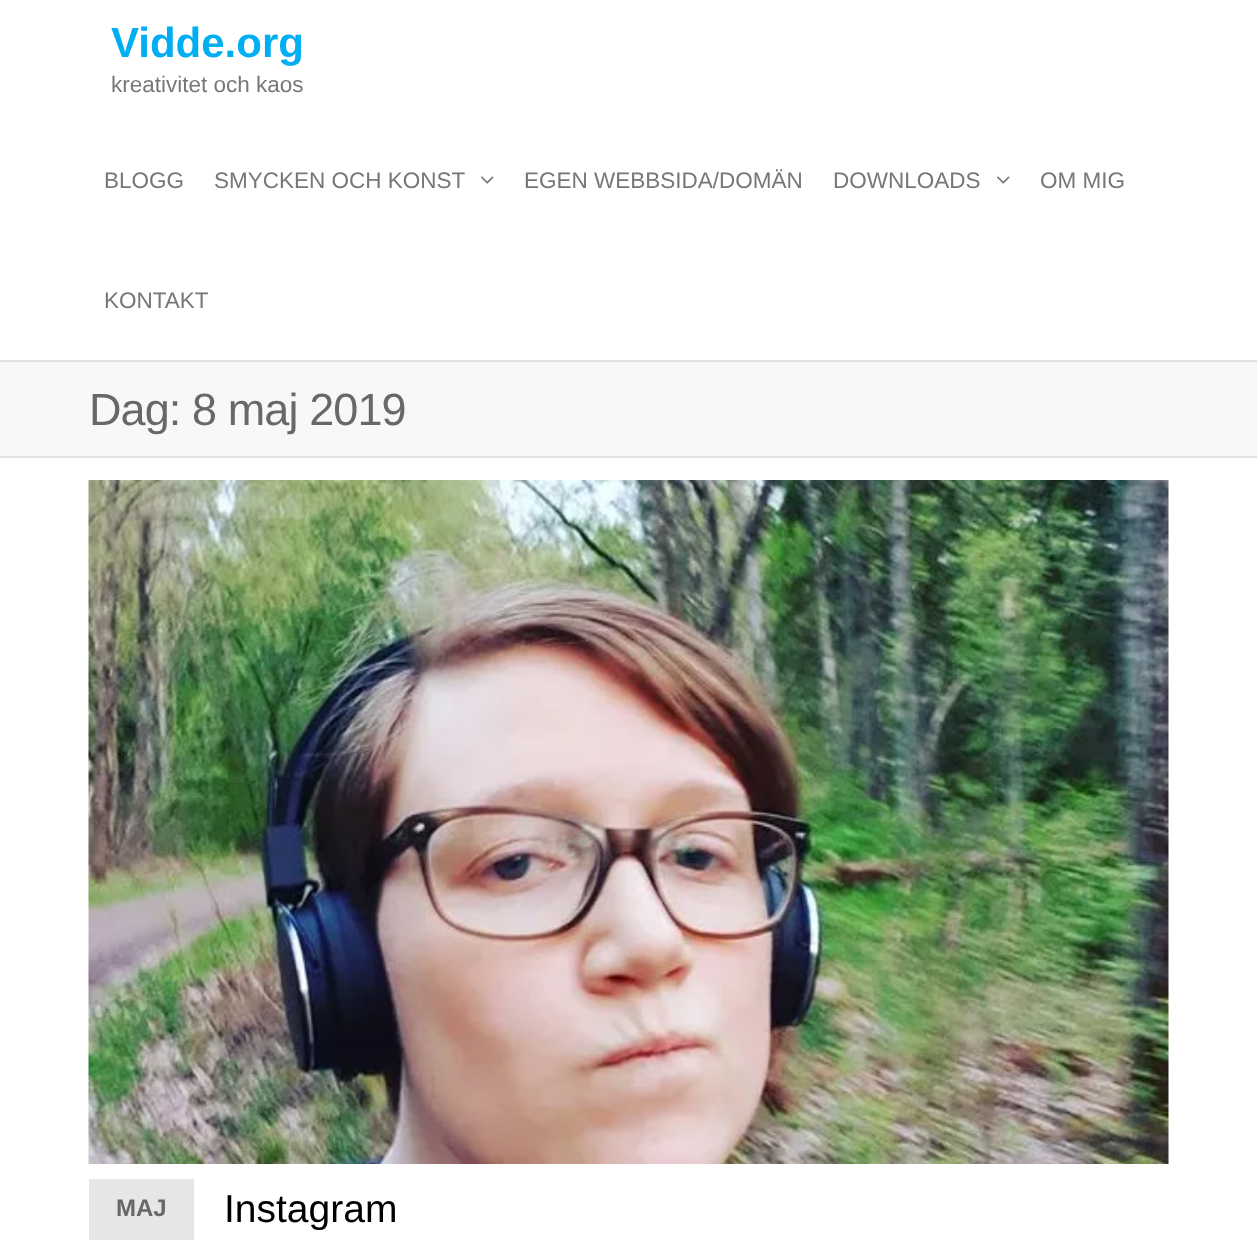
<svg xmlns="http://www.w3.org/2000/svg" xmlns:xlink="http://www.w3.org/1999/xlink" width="1257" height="1240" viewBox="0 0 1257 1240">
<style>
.cls-1{font:bold 42px Liberation Sans;fill:#00aff2}
.cls-2{font:22.5px Liberation Sans;fill:#777777}
.cls-3{font:45px Liberation Sans;letter-spacing:-0.9px;fill:#686868}
.cls-4{font:bold 24px Liberation Sans;fill:#686868}
.cls-5{font:39px Liberation Sans;fill:#000000}
</style>
<rect width="100%" height="100%" fill="#ffffff"/>
<rect fill="#e2e2e2" x="0" y="360" width="1257" height="2"/>
<image xlink:href="image0.png" x="481" y="176" width="13" height="8"/>
<image xlink:href="image0.png" x="997" y="176" width="13" height="8"/>
<rect fill="#f8f8f8" x="0" y="362" width="1257" height="94"/>
<rect fill="#e2e2e2" x="0" y="456" width="1257" height="2"/>
<image xlink:href="image1.png" x="88" y="480" width="1081" height="684"/>
<rect fill="#e6e6e6" x="89" y="1179" width="105" height="61"/>
<text class="cls-1" x="111" y="57">Vidde.org</text>
<text class="cls-2" x="111" y="92">kreativitet och kaos</text>
<text class="cls-2" x="104" y="188">BLOGG</text>
<text class="cls-2" x="214" y="188">SMYCKEN OCH KONST</text>
<text class="cls-2" x="524" y="188">EGEN WEBBSIDA/DOMÄN</text>
<text class="cls-2" x="833" y="188">DOWNLOADS</text>
<text class="cls-2" x="1040" y="188">OM MIG</text>
<text class="cls-2" x="104" y="308">KONTAKT</text>
<text class="cls-3" x="89" y="425">Dag: 8 maj 2019</text>
<text class="cls-4" x="116" y="1216">MAJ</text>
<text class="cls-5" x="224" y="1222">Instagram</text>
</svg>
